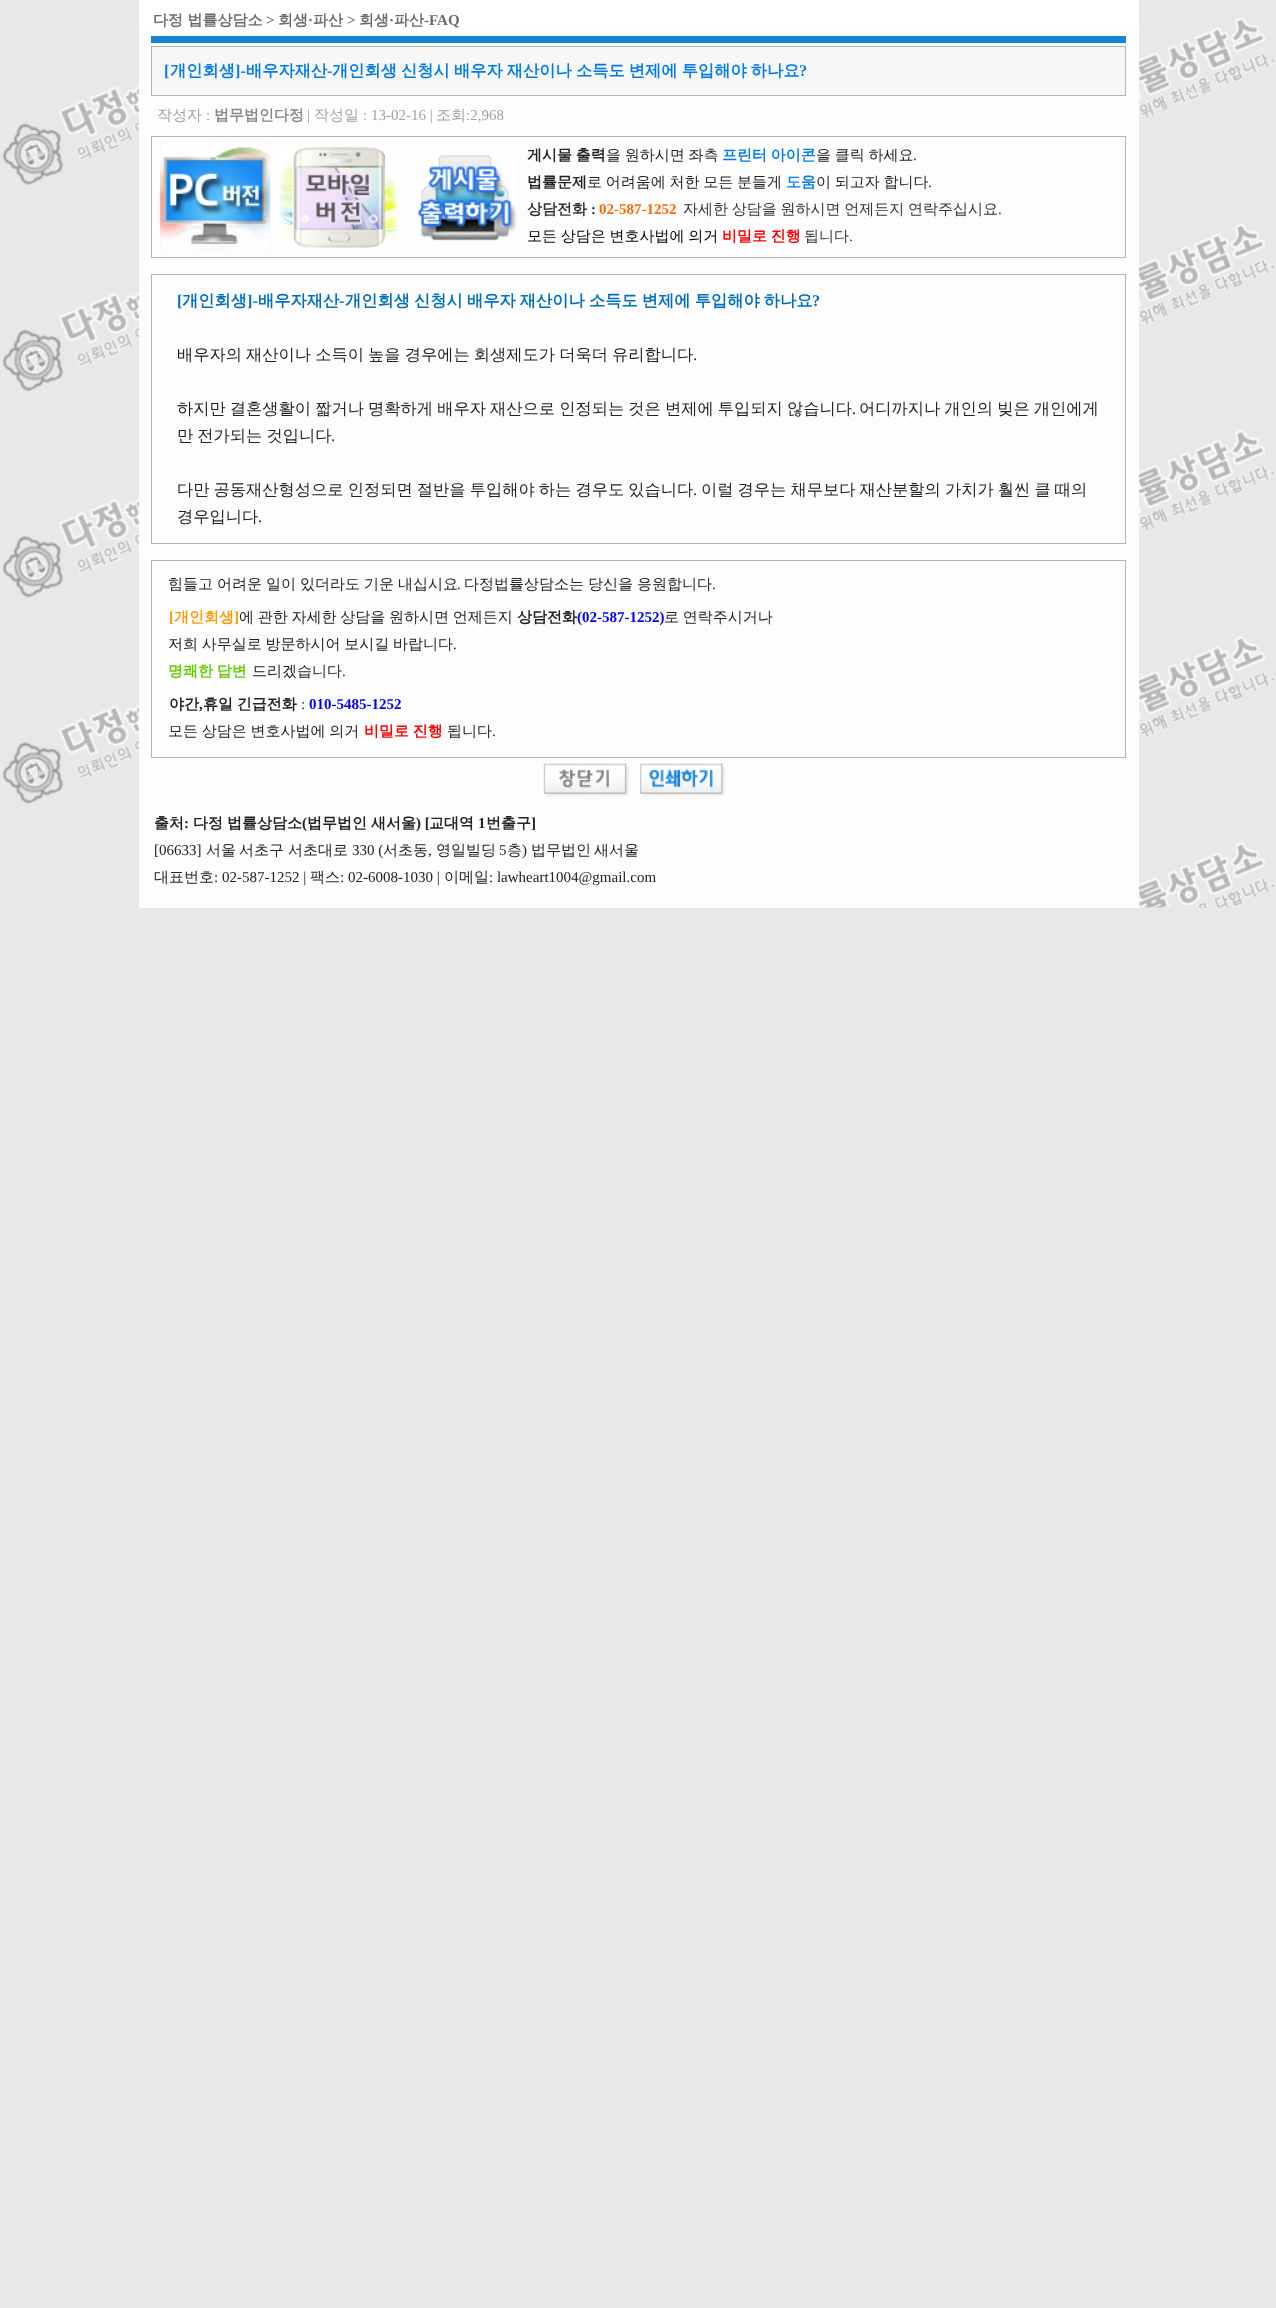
<svg xmlns="http://www.w3.org/2000/svg" xmlns:xlink="http://www.w3.org/1999/xlink" width="1276" height="2308" viewBox="0 0 1276 2308">
<style>
.cls-1{font:bold 15px WenQuanYi Zen Hei;fill:#6b6b6b}
.cls-2{font:bold 15px Liberation Serif;fill:#6b6b6b}
.cls-3{font:bold 16.25px Liberation Serif;fill:#017cee}
.cls-4{font:bold 16.25px WenQuanYi Zen Hei;fill:#017cee}
.cls-5{font:500 15px WenQuanYi Zen Hei;fill:#a2a2a2}
.cls-6{font:15px Liberation Serif;fill:#a2a2a2}
.cls-7{font:bold 15px WenQuanYi Zen Hei;fill:#888888}
.cls-8{font:bold 15px WenQuanYi Zen Hei;fill:#222222}
.cls-9{font:500 15px WenQuanYi Zen Hei;fill:#222222}
.cls-10{font:bold 15px WenQuanYi Zen Hei;fill:#017cee}
.cls-11{font:15px Liberation Serif;fill:#222222}
.cls-12{font:bold 15px WenQuanYi Zen Hei;fill:#333333}
.cls-13{font:bold 15px Liberation Serif;fill:#333333}
.cls-14{font:bold 15px Liberation Serif;fill:#ff6600}
.cls-15{font:500 15px WenQuanYi Zen Hei;fill:#333333}
.cls-16{font:15px Liberation Serif;fill:#333333}
.cls-17{font:500 15px WenQuanYi Zen Hei;fill:#000000}
.cls-18{font:bold 15px WenQuanYi Zen Hei;fill:#ff0000}
.cls-19{font:bold 16.25px Liberation Serif;fill:#0070c0}
.cls-20{font:bold 16.25px WenQuanYi Zen Hei;fill:#0070c0}
.cls-21{font:500 16.25px WenQuanYi Zen Hei;fill:#222222}
.cls-22{font:16.25px Liberation Serif;fill:#222222}
.cls-23{font:bold 15px Liberation Serif;fill:#ff9900}
.cls-24{font:bold 15px WenQuanYi Zen Hei;fill:#ff9900}
.cls-25{font:bold 15px Liberation Serif;fill:#0000ff}
.cls-26{font:bold 15px WenQuanYi Zen Hei;fill:#66cc00}
.cls-27{font:bold 15px Liberation Serif;fill:#222222}
</style>
<rect width="100%" height="100%" fill="#e8e8e8"/>
<image xlink:href="image0.png" x="2" y="17" width="1273" height="891"/>
<rect fill="#ffffff" x="139" y="0" width="1000" height="31"/>
<rect fill="#fdfdfd" x="139" y="31" width="1000" height="877"/>
<rect fill="#1383d9" x="151" y="36" width="975" height="7"/>
<rect fill="#f7f7f7" stroke="#b5b4b5" x="151.5" y="46.5" width="974" height="49"/>
<rect fill="none" stroke="#b5b4b5" x="151.5" y="136.5" width="974" height="121"/>
<image xlink:href="image1.png" x="159" y="141" width="112" height="111"/>
<image xlink:href="image2.png" x="280" y="146" width="119" height="102"/>
<image xlink:href="image3.png" x="417" y="155" width="100" height="86"/>
<rect fill="none" stroke="#b5b4b5" x="151.5" y="274.5" width="974" height="269"/>
<rect fill="none" stroke="#b5b4b5" x="151.5" y="560.5" width="974" height="197"/>
<image xlink:href="image4.png" x="543" y="763" width="86" height="33"/>
<image xlink:href="image5.png" x="640" y="763" width="85" height="33"/>
<text class="cls-1" x="153" y="25">다정 법률상담소</text>
<text class="cls-2" x="266" y="25">&gt;</text>
<text class="cls-1" x="278" y="25">회생</text>
<text class="cls-2" x="308" y="25">·</text>
<text class="cls-1" x="313" y="25">파산</text>
<text class="cls-2" x="347" y="25">&gt;</text>
<text class="cls-1" x="359" y="25">회생</text>
<text class="cls-2" x="389" y="25">·</text>
<text class="cls-1" x="394" y="25">파산</text>
<text class="cls-2" x="424" y="25">-FAQ</text>
<text class="cls-3" x="164" y="76">[</text>
<text class="cls-4" x="170" y="76">개인회생</text>
<text class="cls-3" x="235" y="76">]-</text>
<text class="cls-4" x="246" y="76">배우자재산</text>
<text class="cls-3" x="327" y="76">-</text>
<text class="cls-4" x="332" y="76" word-spacing="-0.75">개인회생 신청시 배우자 재산이나 소득도 변제에 투입해야 하나요</text>
<text class="cls-3" x="799" y="76">?</text>
<text class="cls-5" x="157" y="120">작성자</text>
<text class="cls-6" x="206" y="120">:</text>
<text class="cls-7" x="214" y="120">법무법인다정</text>
<text class="cls-6" x="307" y="120">|</text>
<text class="cls-5" x="314" y="120">작성일</text>
<text class="cls-6" x="363" y="120">: 13-02-16 |</text>
<text class="cls-5" x="436" y="120">조회</text>
<text class="cls-6" x="466" y="120">:2,968</text>
<text class="cls-8" x="527" y="160" word-spacing="-0.75">게시물 출력</text>
<text class="cls-9" x="606" y="160" word-spacing="-0.75">을 원하시면 좌측</text>
<text class="cls-10" x="722" y="160" word-spacing="-0.75">프린터 아이콘</text>
<text class="cls-9" x="816" y="160" word-spacing="-0.75">을 클릭 하세요</text>
<text class="cls-11" x="913" y="160">.</text>
<text class="cls-8" x="527" y="187">법률문제</text>
<text class="cls-9" x="587" y="187" word-spacing="-0.75">로 어려움에 처한 모든 분들게</text>
<text class="cls-10" x="786" y="187">도움</text>
<text class="cls-9" x="816" y="187" word-spacing="-0.75">이 되고자 합니다</text>
<text class="cls-11" x="928" y="187">.</text>
<text class="cls-12" x="527" y="214">상담전화</text>
<text class="cls-13" x="591" y="214">:</text>
<text class="cls-14" x="599" y="214">02-587-1252</text>
<text class="cls-15" x="683" y="214" word-spacing="-0.75">자세한 상담을 원하시면 언제든지 연락주십시요</text>
<text class="cls-16" x="998" y="214">.</text>
<text class="cls-17" x="527" y="241" word-spacing="-0.75">모든 상담은 변호사법에 의거</text>
<text class="cls-18" x="722" y="241" word-spacing="-0.75">비밀로 진행</text>
<text class="cls-15" x="804" y="241">됩니다</text>
<text class="cls-16" x="849" y="241">.</text>
<text class="cls-19" x="177" y="306">[</text>
<text class="cls-20" x="182" y="306">개인회생</text>
<text class="cls-19" x="247" y="306">]-</text>
<text class="cls-20" x="258" y="306">배우자재산</text>
<text class="cls-19" x="339" y="306">-</text>
<text class="cls-20" x="345" y="306" word-spacing="-0.75">개인회생 신청시 배우자 재산이나 소득도 변제에 투입해야 하나요</text>
<text class="cls-19" x="812" y="306">?</text>
<text class="cls-21" x="177" y="360" word-spacing="-0.75">배우자의 재산이나 소득이 높을 경우에는 회생제도가 더욱더 유리합니다</text>
<text class="cls-22" x="693" y="360">.</text>
<text class="cls-21" x="177" y="414" word-spacing="-0.75">하지만 결혼생활이 짧거나 명확하게 배우자 재산으로 인정되는 것은 변제에 투입되지 않습니다</text>
<text class="cls-22" x="852" y="414">.</text>
<text class="cls-21" x="859" y="414" word-spacing="-0.75">어디까지나 개인의 빚은 개인에게</text>
<text class="cls-21" x="177" y="441" word-spacing="-0.75">만 전가되는 것입니다</text>
<text class="cls-22" x="331" y="441">.</text>
<text class="cls-21" x="177" y="495" word-spacing="-0.75">다만 공동재산형성으로 인정되면 절반을 투입해야 하는 경우도 있습니다</text>
<text class="cls-22" x="693" y="495">.</text>
<text class="cls-21" x="701" y="495" word-spacing="-0.75">이럴 경우는 채무보다 재산분할의 가치가 훨씬 클 때의</text>
<text class="cls-21" x="177" y="522">경우입니다</text>
<text class="cls-22" x="258" y="522">.</text>
<text class="cls-9" x="168" y="589" word-spacing="-0.5">힘들고 어려운 일이 있더라도 기운 내십시요</text>
<text class="cls-11" x="457" y="589">.</text>
<text class="cls-9" x="464" y="589" word-spacing="-0.5">다정법률상담소는 당신을 응원합니다</text>
<text class="cls-11" x="712" y="589">.</text>
<text class="cls-23" x="169" y="622">[</text>
<text class="cls-24" x="174" y="622">개인회생</text>
<text class="cls-23" x="234" y="622">]</text>
<text class="cls-9" x="239" y="622" word-spacing="-0.75">에 관한 자세한 상담을 원하시면 언제든지</text>
<text class="cls-8" x="517" y="622">상담전화</text>
<text class="cls-25" x="577" y="622">(02-587-1252)</text>
<text class="cls-9" x="664" y="622" word-spacing="-0.75">로 연락주시거나</text>
<text class="cls-9" x="168" y="649" word-spacing="-0.75">저희 사무실로 방문하시어 보시길 바랍니다</text>
<text class="cls-11" x="453" y="649">.</text>
<text class="cls-26" x="168" y="676" word-spacing="-0.75">명쾌한 답변</text>
<text class="cls-9" x="252" y="676">드리겠습니다</text>
<text class="cls-11" x="342" y="676">.</text>
<text class="cls-8" x="169" y="709">야간</text>
<text class="cls-27" x="199" y="709">,</text>
<text class="cls-8" x="203" y="709" word-spacing="-0.75">휴일 긴급전화</text>
<text class="cls-11" x="301" y="709">:</text>
<text class="cls-25" x="309" y="709">010-5485-1252</text>
<text class="cls-9" x="168" y="736" word-spacing="-0.75">모든 상담은 변호사법에 의거</text>
<text class="cls-18" x="364" y="736" word-spacing="-0.75">비밀로 진행</text>
<text class="cls-9" x="447" y="736">됩니다</text>
<text class="cls-11" x="492" y="736">.</text>
<text class="cls-8" x="154" y="828">출처</text>
<text class="cls-27" x="184" y="828">:</text>
<text class="cls-8" x="193" y="828">다정</text>
<text class="cls-8" x="227" y="828">법률상담소</text>
<text class="cls-27" x="302" y="828">(</text>
<text class="cls-8" x="307" y="828">법무법인</text>
<text class="cls-8" x="371" y="828">새서울</text>
<text class="cls-27" x="416" y="828">) [</text>
<text class="cls-8" x="429" y="828">교대역</text>
<text class="cls-27" x="478" y="828">1</text>
<text class="cls-8" x="486" y="828">번출구</text>
<text class="cls-27" x="531" y="828">]</text>
<text class="cls-11" x="154" y="855">[06633]</text>
<text class="cls-9" x="206" y="855">서울</text>
<text class="cls-9" x="239" y="855">서초구</text>
<text class="cls-9" x="288" y="855">서초대로</text>
<text class="cls-11" x="352" y="855">330 (</text>
<text class="cls-9" x="383" y="855">서초동</text>
<text class="cls-11" x="428" y="855">,</text>
<text class="cls-9" x="436" y="855">영일빌딩</text>
<text class="cls-11" x="499" y="855">5</text>
<text class="cls-9" x="507" y="855">층</text>
<text class="cls-11" x="522" y="855">)</text>
<text class="cls-9" x="531" y="855">법무법인</text>
<text class="cls-9" x="594" y="855">새서울</text>
<text class="cls-9" x="154" y="882">대표번호</text>
<text class="cls-11" x="214" y="882">: 02-587-1252 |</text>
<text class="cls-9" x="310" y="882">팩스</text>
<text class="cls-11" x="340" y="882">: 02-6008-1030 |</text>
<text class="cls-9" x="444" y="882">이메일</text>
<text class="cls-11" x="489" y="882">: lawheart1004@gmail.com</text>
</svg>
